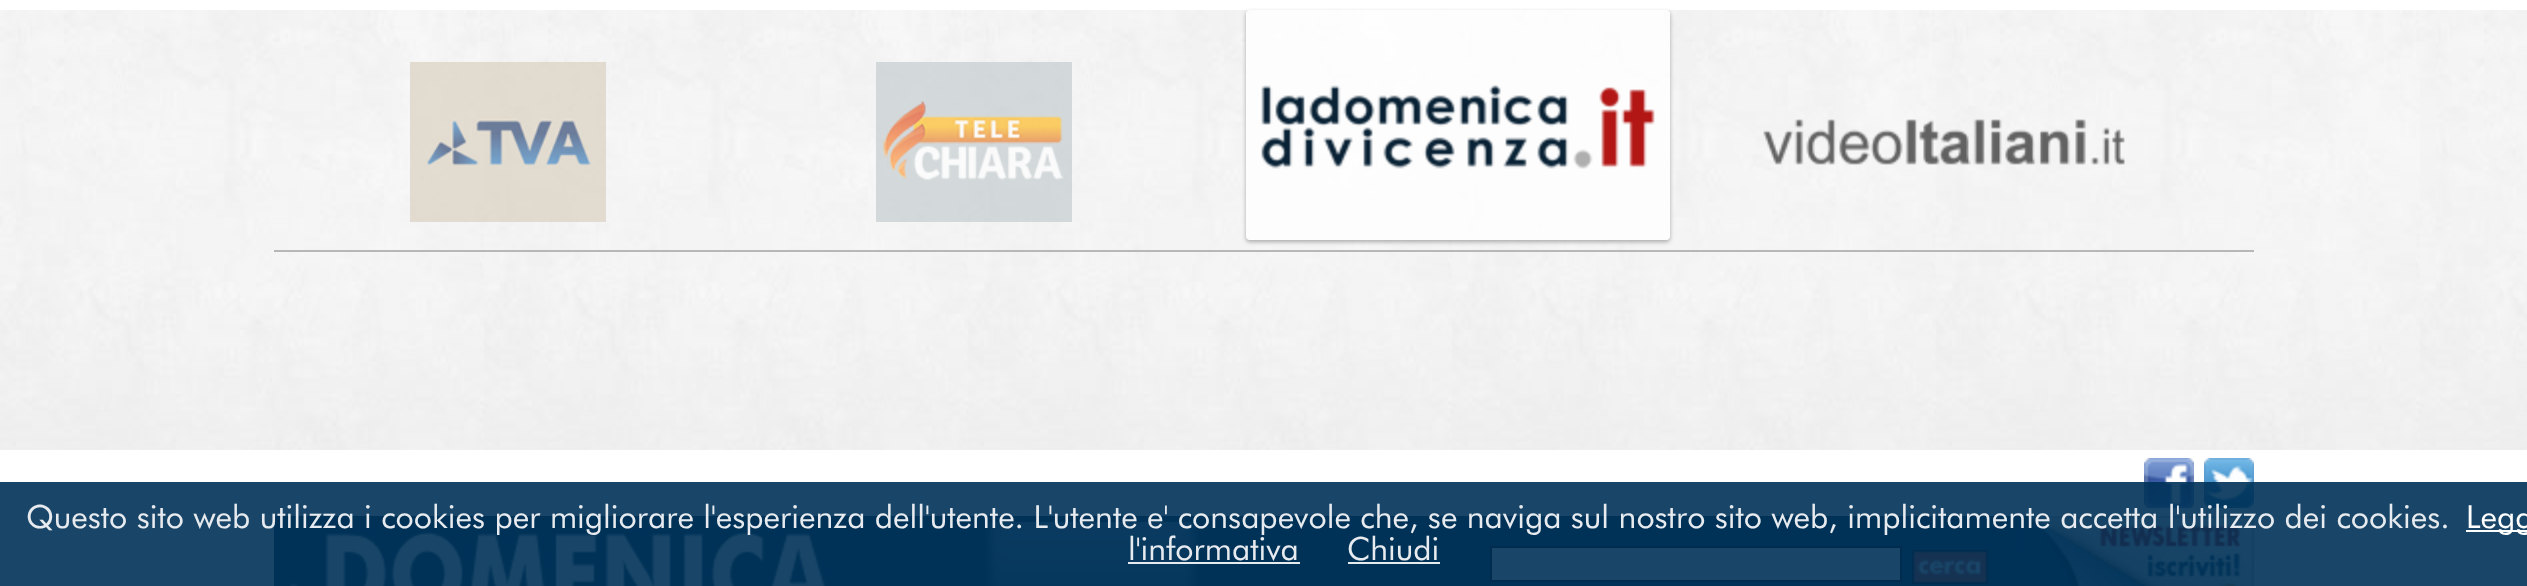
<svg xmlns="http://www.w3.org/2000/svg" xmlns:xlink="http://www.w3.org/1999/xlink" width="2527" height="586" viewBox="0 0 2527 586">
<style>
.cls-1{font:32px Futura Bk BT;fill:#e7ebef}
.cls-2{font:32px Futura Bk BT;fill:#ffffff}
</style>
<defs>
<clipPath id="clip1"><path d="M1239 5H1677V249H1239ZM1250 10H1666C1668 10 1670 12 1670 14V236C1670 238 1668 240 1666 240H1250C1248 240 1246 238 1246 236V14C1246 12 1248 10 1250 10Z" clip-rule="evenodd"/></clipPath>
</defs>
<rect width="100%" height="100%" fill="#ffffff"/>
<image xlink:href="image0.png" x="0" y="10" width="2527" height="440"/>
<rect fill="#b7b7b7" x="274" y="250" width="1980" height="2"/>
<image xlink:href="image1.png" x="410" y="62" width="196" height="160"/>
<image xlink:href="image2.png" x="876" y="62" width="196" height="160"/>
<g clip-path="url(#clip1)">
<rect fill="#000000" fill-opacity="0.3" filter="blur(2px)" x="1246" y="12" width="424" height="230" rx="4"/>
</g>
<rect fill="#ffffff" fill-opacity="0.8" x="1246" y="10" width="424" height="230" rx="4"/>
<image xlink:href="image3.png" x="1261" y="85" width="394" height="84"/>
<image xlink:href="image4.png" x="1763" y="119" width="362" height="46"/>
<image xlink:href="image5.png" x="2144" y="458" width="50" height="50"/>
<image xlink:href="image6.png" x="2204" y="458" width="50" height="50"/>
<image xlink:href="image7.png" x="274" y="516" width="1822" height="70"/>
<image xlink:href="image8.png" x="982" y="522" width="220" height="64"/>
<rect fill="#ffffff" stroke="#000000" stroke-width="2" x="1491" y="547" width="410" height="34"/>
<image xlink:href="image9.png" x="1912" y="550" width="76" height="34"/>
<image xlink:href="image10.png" x="2096" y="516" width="158" height="70"/>
<rect fill="#003258" fill-opacity="0.9" x="0" y="482" width="2527" height="104"/>
<rect fill="#ffffff" x="2466" y="530" width="61" height="2"/>
<rect fill="#ffffff" fill-opacity="0.9" x="1128" y="562" width="172" height="2"/>
<rect fill="#e6ebee" x="1348" y="562" width="92" height="2"/>
<text class="cls-1" x="26" y="528">Questo sito web utilizza i cookies per migliorare l'esperienza dell'utente. L'utente e' consapevole che, se naviga sul nostro sito web, implicitamente accetta l'utilizzo dei cookies.</text>
<text class="cls-2" x="2466" y="528">Legg</text>
<text class="cls-1" x="1128" y="560">l'informativa</text>
<text class="cls-1" x="1347" y="560">Chiudi</text>
</svg>
